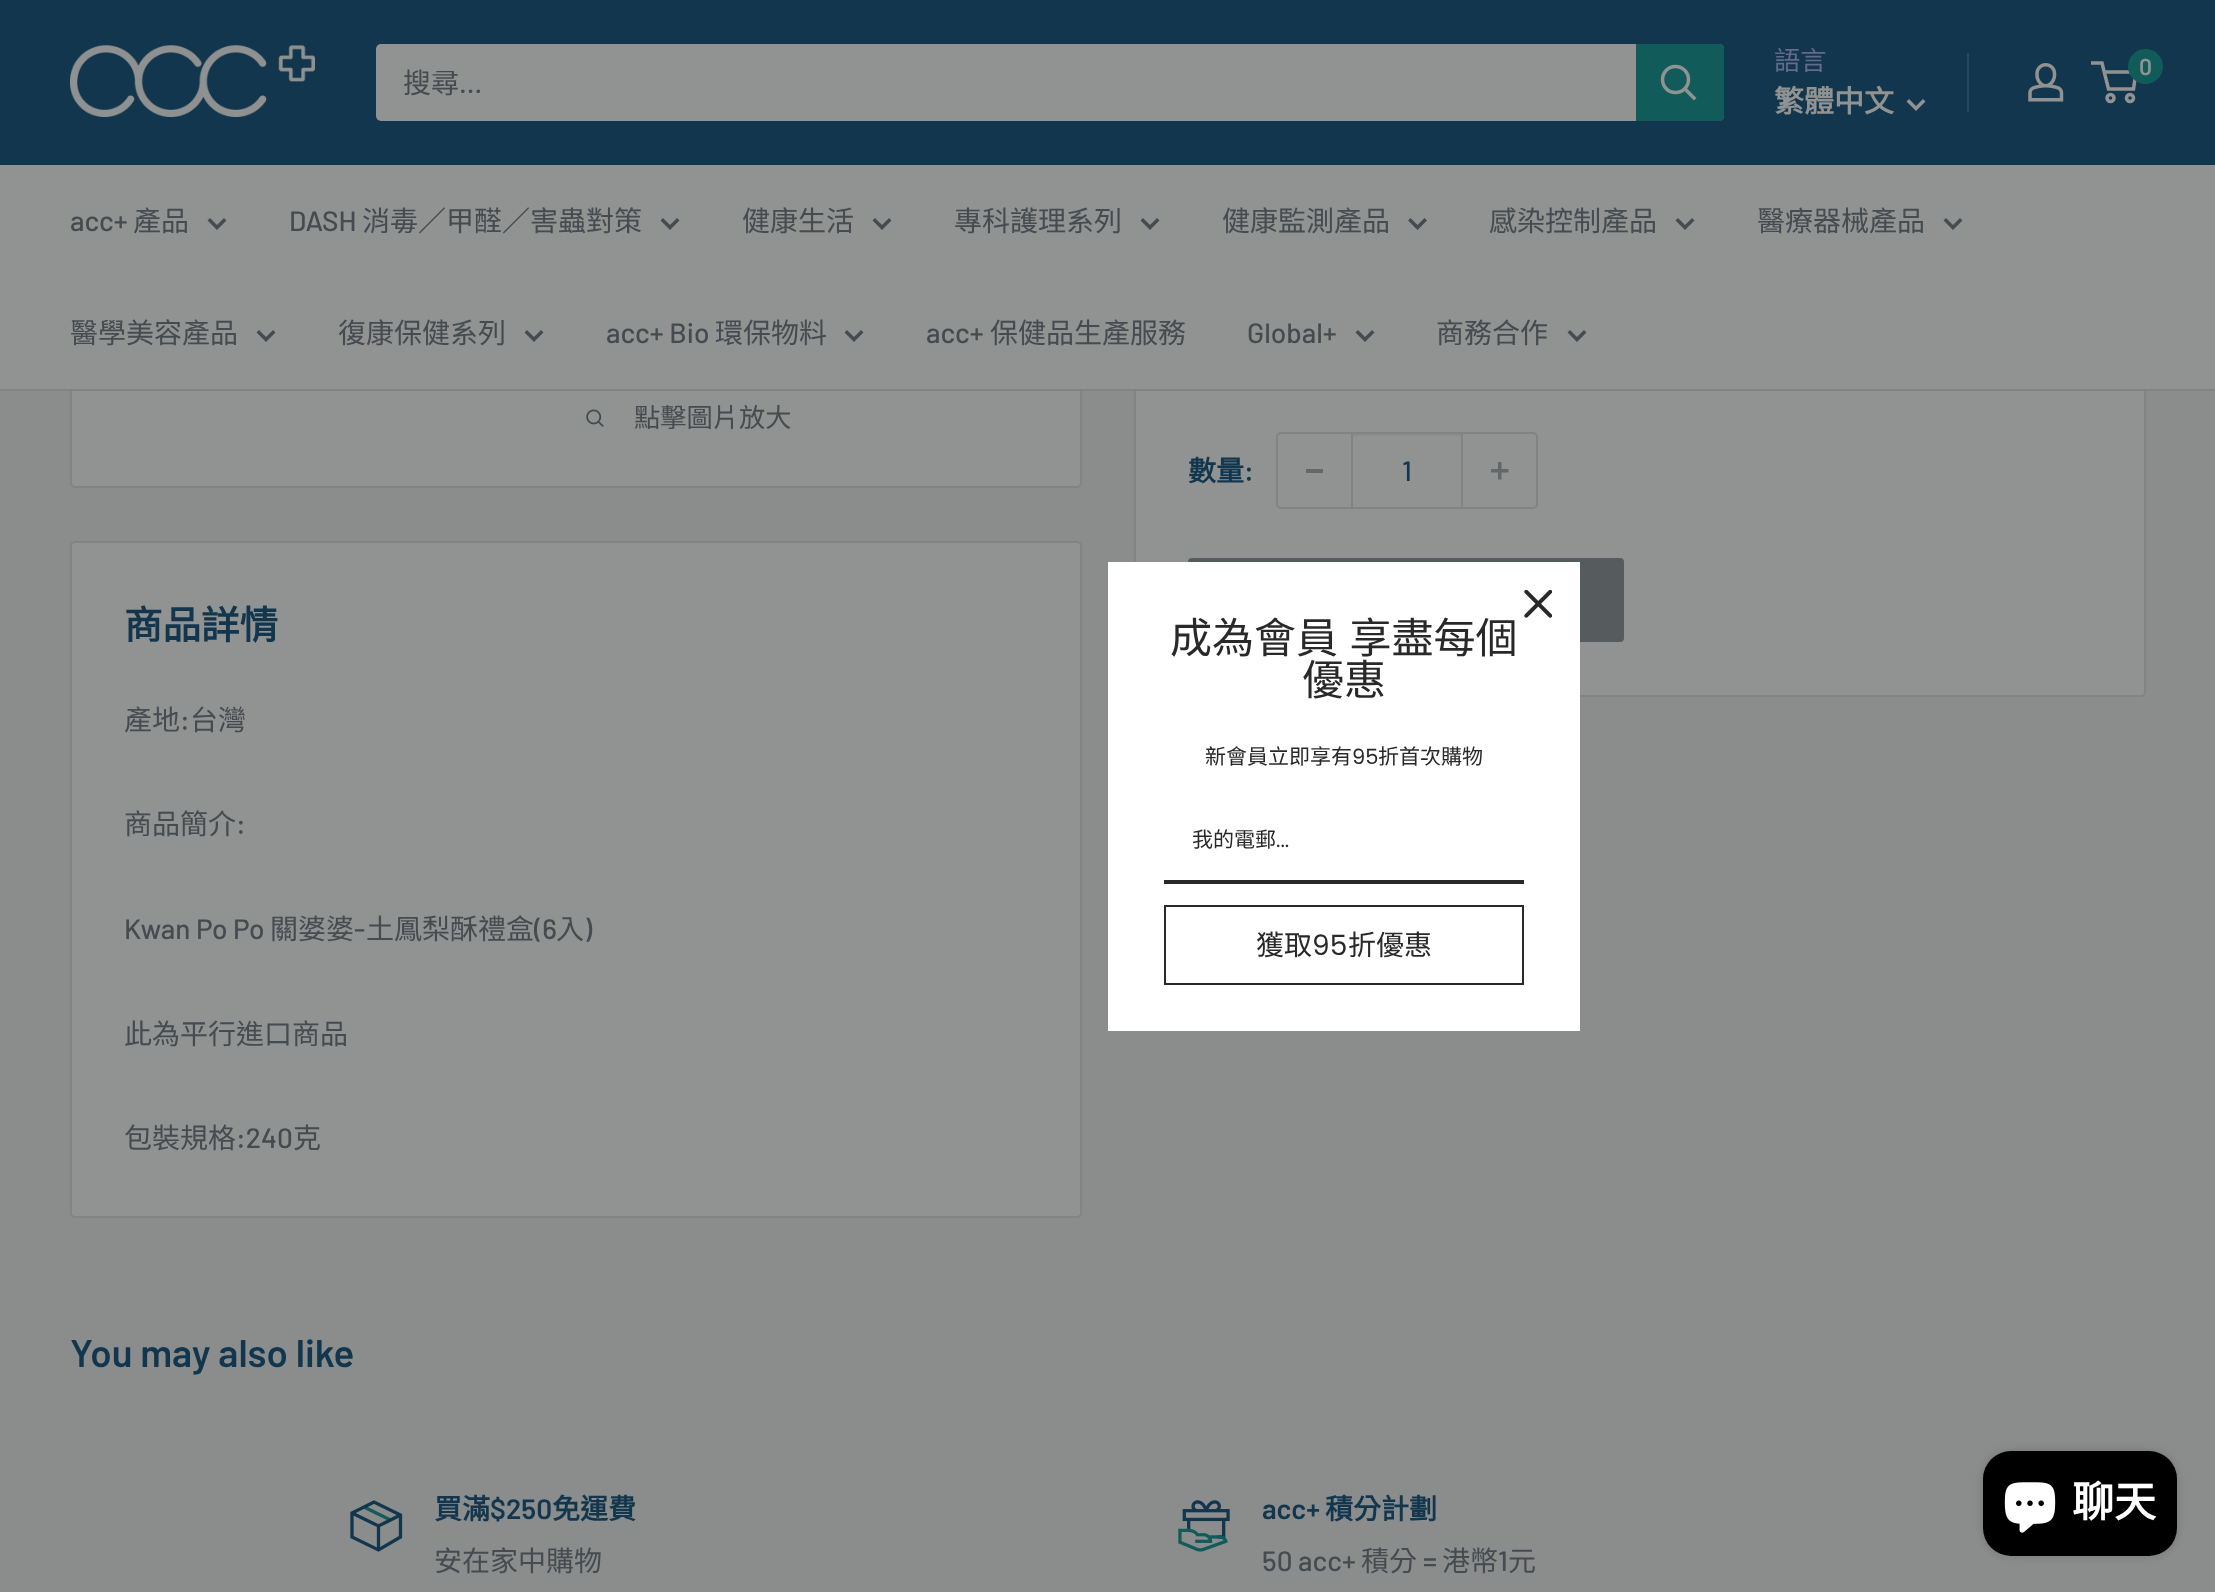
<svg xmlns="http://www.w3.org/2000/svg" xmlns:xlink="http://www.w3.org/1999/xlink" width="2215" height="1592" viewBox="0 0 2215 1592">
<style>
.cls-1{font:28px Noto Sans CJK TC;fill:#454b4f}
.cls-2{font:500 28px Barlow;fill:#454b4f}
.cls-3{font:26.25px Noto Sans CJK TC;fill:#636a8a}
.cls-4{font:bold 30px Noto Sans CJK TC;fill:#919292}
.cls-5{font:600 23px Barlow;fill:#919292}
.cls-6{font:26.25px Noto Sans CJK TC;fill:#454b4f}
.cls-7{font:bold 28px Noto Sans CJK TC;fill:#11364d}
.cls-8{font:600 28px Barlow;fill:#11364d}
.cls-9{font:500 28px Barlow;fill:#11364d}
.cls-10{font:bold 38.5px Noto Sans CJK TC;fill:#11364d}
.cls-11{font:600 38.5px Barlow;fill:#11364d}
.cls-12{font:42px Noto Sans CJK TC;fill:#292929}
.cls-13{font:21px Noto Sans CJK TC;fill:#292929}
.cls-14{font:21px Poppins;fill:#292929}
.cls-15{font:28px Noto Sans CJK TC;fill:#292929}
.cls-16{font:28px Poppins;fill:#292929}
.cls-17{font:bold 42px Noto Sans CJK TC;fill:#ffffff}
</style>
<rect width="100%" height="100%" fill="#8b8d8d"/>
<rect fill="#919292" stroke="#828484" stroke-width="2" x="71" y="-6" width="1010" height="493" rx="4"/>
<rect fill="#919292" stroke="#828484" stroke-width="2" x="1135" y="1" width="1010" height="695" rx="4"/>
<rect fill="#11364d" x="0" y="0" width="2215" height="165"/>
<image xlink:href="image0.png" x="70" y="45" width="245" height="72"/>
<rect fill="#919292" x="376" y="44" width="1348" height="77" rx="5"/>
<path fill="#115c5a" d="M1636 44H1719C1722 44 1724 46 1724 49V116C1724 119 1722 121 1719 121H1636Z"/>
<path fill="none" stroke="#919292" stroke-width="3.5" stroke-linecap="square" d="M1694 98L1685 89"/>
<circle fill="none" stroke="#919292" stroke-width="3.5" cx="1675.5" cy="79.5" r="13"/>
<path fill="none" stroke="#919292" stroke-width="3.5" stroke-linecap="square" d="M1923 101.5L1916 108.5L1909 101.5"/>
<rect fill="#2a465f" x="1967" y="53" width="2" height="59"/>
<image xlink:href="image1.png" x="2028" y="63" width="36" height="39"/>
<circle fill="none" stroke="#919292" stroke-width="3.5" cx="2110.5" cy="98" r="3.5"/>
<circle fill="none" stroke="#919292" stroke-width="3.5" cx="2130" cy="98" r="3.5"/>
<path fill="none" stroke="#919292" stroke-width="3.5" d="M2104 72H2136L2133.5 89H2108.5L2102 63H2091"/>
<circle fill="#115c5a" cx="2145.5" cy="66.5" r="17.5"/>
<rect fill="#919292" x="0" y="165" width="2215" height="224"/>
<rect fill="#828484" x="0" y="389" width="2215" height="2"/>
<path fill="none" stroke="#454b4f" stroke-width="3.5" stroke-linecap="square" d="M224 220.5L217 227.5L210 220.5"/>
<path fill="none" stroke="#454b4f" stroke-width="3.5" stroke-linecap="square" d="M677 220.5L670 227.5L663 220.5"/>
<path fill="none" stroke="#454b4f" stroke-width="3.5" stroke-linecap="square" d="M889 220.5L882 227.5L875 220.5"/>
<path fill="none" stroke="#454b4f" stroke-width="3.5" stroke-linecap="square" d="M1157 220.5L1150 227.5L1143 220.5"/>
<path fill="none" stroke="#454b4f" stroke-width="3.5" stroke-linecap="square" d="M1424.5 220.5L1417.5 227.5L1410.5 220.5"/>
<path fill="none" stroke="#454b4f" stroke-width="3.5" stroke-linecap="square" d="M1692 220.5L1685 227.5L1678 220.5"/>
<path fill="none" stroke="#454b4f" stroke-width="3.5" stroke-linecap="square" d="M1960 220.5L1953 227.5L1946 220.5"/>
<path fill="none" stroke="#454b4f" stroke-width="3.5" stroke-linecap="square" d="M273 332.5L266 339.5L259 332.5"/>
<path fill="none" stroke="#454b4f" stroke-width="3.5" stroke-linecap="square" d="M541 332.5L534 339.5L527 332.5"/>
<path fill="none" stroke="#454b4f" stroke-width="3.5" stroke-linecap="square" d="M861 332.5L854 339.5L847 332.5"/>
<path fill="none" stroke="#454b4f" stroke-width="3.5" stroke-linecap="square" d="M1372 332.5L1365 339.5L1358 332.5"/>
<path fill="none" stroke="#454b4f" stroke-width="3.5" stroke-linecap="square" d="M1584 332.5L1577 339.5L1570 332.5"/>
<image xlink:href="image2.png" x="586" y="409" width="18" height="18"/>
<rect fill="none" stroke="#828484" stroke-width="2" x="1277" y="433" width="260" height="75" rx="4"/>
<rect fill="#63676a" x="1306" y="469" width="17" height="4"/>
<rect fill="#8b8c8c" x="1353" y="434" width="108" height="2"/>
<rect fill="#828484" x="1461" y="434" width="2" height="74"/>
<rect fill="#828484" x="1351" y="434" width="2" height="74"/>
<image xlink:href="image3.png" x="1491" y="462" width="18" height="18"/>
<rect fill="#565b5e" stroke="#565b5e" stroke-width="2" x="1189" y="559" width="434" height="82" rx="3"/>
<rect fill="#919292" stroke="#828484" stroke-width="2" x="71" y="542" width="1010" height="675" rx="4"/>
<rect fill="#ffffff" x="1108" y="562" width="472" height="469"/>
<image xlink:href="image4.png" x="1524" y="590" width="28" height="28"/>
<rect fill="#292929" x="1164" y="880" width="360" height="4"/>
<rect fill="none" stroke="#292929" stroke-width="2" x="1165" y="906" width="358" height="78"/>
<path fill="none" stroke="#115c5a" stroke-width="3.3" d="M364 1507L390.5 1520"/>
<path fill="none" stroke="#11364d" stroke-width="3.3" d="M400.5 1515L378.5 1526L352 1513M378.5 1526V1550"/>
<path fill="none" stroke="#11364d" stroke-width="3.3" stroke-linecap="square" d="M400.5 1515V1537L378.5 1550L352 1537V1513L374 1502Z"/>
<image xlink:href="image5.png" x="1178" y="1500" width="52" height="52"/>
<rect fill="#000000" fill-opacity="0.15" filter="blur(4.5px)" x="1983" y="1451" width="194" height="105" rx="28"/>
<rect fill="#000000" x="1983" y="1451" width="194" height="105" rx="28"/>
<image xlink:href="image6.png" x="2004" y="1482" width="52" height="51"/>
<text class="cls-1" x="403" y="93">搜尋</text>
<text class="cls-2" x="459" y="93">...</text>
<text class="cls-3" x="1774" y="70">語言</text>
<text class="cls-4" x="1774" y="112">繁體中文</text>
<text class="cls-5" x="2139" y="75">0</text>
<text class="cls-2" x="70" y="231">acc+</text>
<text class="cls-1" x="133" y="231">產品</text>
<text class="cls-2" x="289" y="231">DASH</text>
<text class="cls-1" x="362" y="231">消毒／甲醛／害蟲對策</text>
<text class="cls-1" x="742" y="231">健康生活</text>
<text class="cls-1" x="954" y="231">專科護理系列</text>
<text class="cls-1" x="1222" y="231">健康監測產品</text>
<text class="cls-1" x="1489" y="231">感染控制產品</text>
<text class="cls-1" x="1757" y="231">醫療器械產品</text>
<text class="cls-1" x="70" y="343">醫學美容產品</text>
<text class="cls-1" x="338" y="343">復康保健系列</text>
<text class="cls-2" x="606" y="343">acc+ Bio</text>
<text class="cls-1" x="715" y="343">環保物料</text>
<text class="cls-2" x="926" y="343">acc+</text>
<text class="cls-1" x="990" y="343">保健品生產服務</text>
<text class="cls-2" x="1247" y="343">Global+</text>
<text class="cls-1" x="1436" y="343">商務合作</text>
<text class="cls-6" x="634" y="427">點擊圖片放大</text>
<text class="cls-7" x="1188" y="481">數量</text>
<text class="cls-8" x="1244" y="481">:</text>
<text class="cls-9" x="1402" y="481">1</text>
<text class="cls-10" x="124" y="639">商品詳情</text>
<text class="cls-1" x="124" y="730">產地</text>
<text class="cls-2" x="180" y="730">:</text>
<text class="cls-1" x="190" y="730">台灣</text>
<text class="cls-1" x="124" y="834">商品簡介</text>
<text class="cls-2" x="236" y="834">:</text>
<text class="cls-2" x="124" y="939">Kwan Po Po</text>
<text class="cls-1" x="270" y="939">關婆婆</text>
<text class="cls-2" x="354" y="939">-</text>
<text class="cls-1" x="366" y="939">土鳳梨酥禮盒</text>
<text class="cls-2" x="534" y="939">(6</text>
<text class="cls-1" x="556" y="939">入</text>
<text class="cls-2" x="584" y="939">)</text>
<text class="cls-1" x="124" y="1044">此為平行進口商品</text>
<text class="cls-1" x="124" y="1148">包裝規格</text>
<text class="cls-2" x="236" y="1148">:240</text>
<text class="cls-1" x="293" y="1148">克</text>
<text class="cls-11" x="70" y="1367">You may also like</text>
<text class="cls-12" x="1170" y="653" word-spacing="2">成為會員 享盡每個</text>
<text class="cls-12" x="1302" y="695">優惠</text>
<text class="cls-13" x="1205" y="764">新會員立即享有</text>
<text class="cls-14" x="1352" y="764">95</text>
<text class="cls-13" x="1378" y="764">折首次購物</text>
<text class="cls-13" x="1192" y="847">我的電郵</text>
<text class="cls-14" x="1276" y="847">...</text>
<text class="cls-15" x="1256" y="955">獲取</text>
<text class="cls-16" x="1312" y="955">95</text>
<text class="cls-15" x="1348" y="955">折優惠</text>
<text class="cls-7" x="434" y="1519">買滿</text>
<text class="cls-8" x="490" y="1519">$250</text>
<text class="cls-7" x="552" y="1519">免運費</text>
<text class="cls-1" x="434" y="1571">安在家中購物</text>
<text class="cls-8" x="1262" y="1519">acc+</text>
<text class="cls-7" x="1325" y="1519">積分計劃</text>
<text class="cls-2" x="1262" y="1571">50 acc+</text>
<text class="cls-1" x="1361" y="1571">積分</text>
<text class="cls-2" x="1423" y="1571">=</text>
<text class="cls-1" x="1442" y="1571">港幣</text>
<text class="cls-2" x="1498" y="1571">1</text>
<text class="cls-1" x="1508" y="1571">元</text>
<text class="cls-17" x="2072" y="1517">聊天</text>
</svg>
